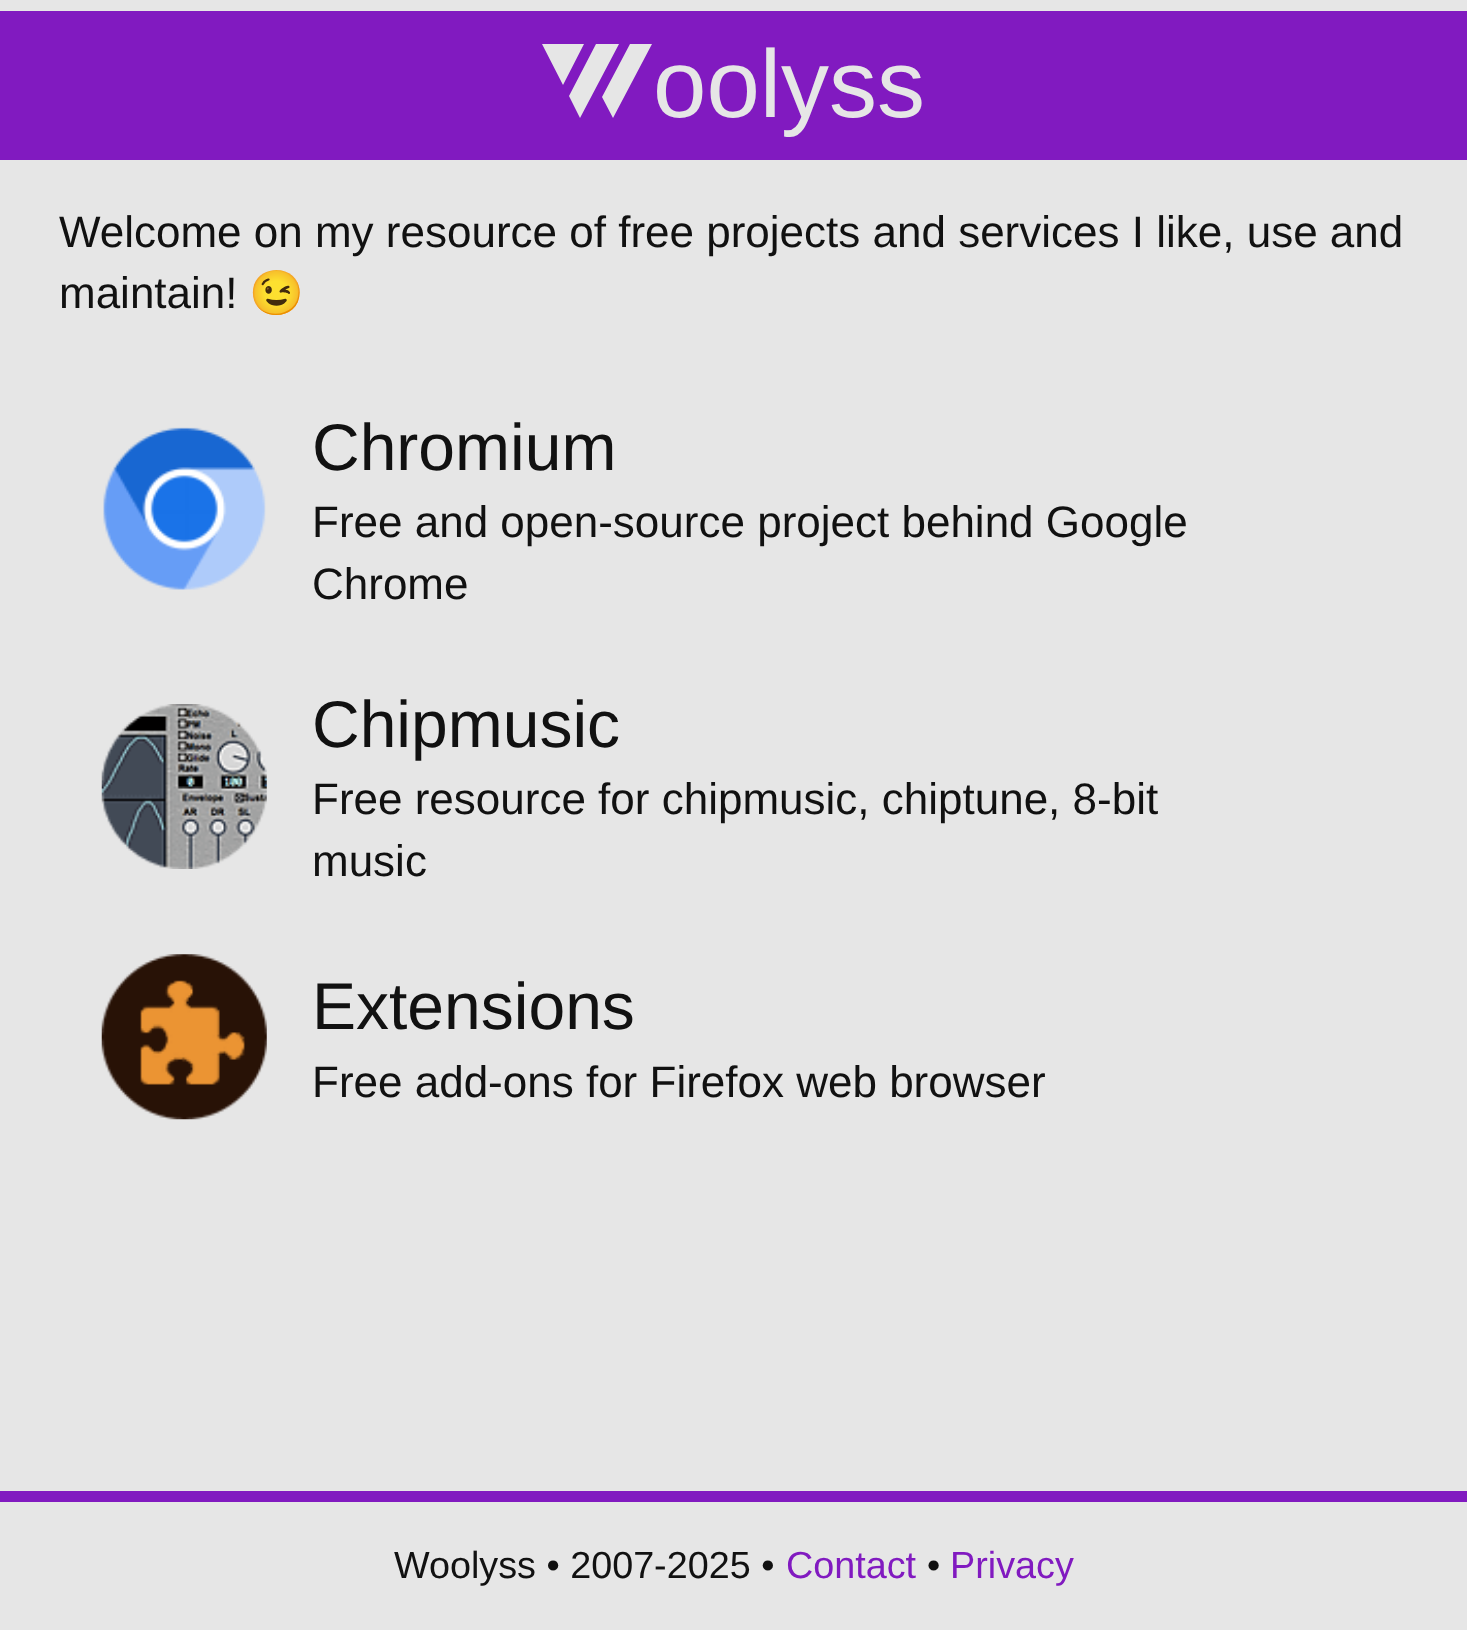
<svg xmlns="http://www.w3.org/2000/svg" xmlns:xlink="http://www.w3.org/1999/xlink" width="1467" height="1630" viewBox="0 0 1467 1630">
<style>
.cls-1{font:96px Liberation Sans;fill:#e6e6e6}
.cls-2{font:44px Liberation Sans;fill:#111111}
.cls-3{font:44px Noto Color Emoji;fill:#111111}
.cls-4{font:66px Liberation Sans;fill:#111111}
.cls-5{font:37.75px Liberation Sans;fill:#111111}
.cls-6{font:37.75px Liberation Sans;fill:#811ac0}
</style>
<rect width="100%" height="100%" fill="#e6e6e6"/>
<rect fill="#811ac0" x="0" y="11" width="1467" height="149"/>
<path fill="#e6e6e6" d="M542 44L563 85L584 44ZM569 96L580 118L619 44H596ZM630 44L602 97L613 118L652 44Z"/>
<image xlink:href="image0.png" x="103" y="427" width="163" height="163"/>
<image xlink:href="image1.png" x="101" y="704" width="166" height="165"/>
<image xlink:href="image2.png" x="101" y="954" width="166" height="166"/>
<rect fill="#811ac0" x="0" y="1491" width="1467" height="11"/>
<text class="cls-1" x="653" y="117">oolyss</text>
<text class="cls-2"><tspan x="59" y="247">Welcome on my resource of free projects and services I like, use and</tspan><tspan x="59" y="308">maintain!</tspan></text>
<text class="cls-3" x="249" y="308">😉</text>
<text class="cls-4" x="312" y="470">Chromium</text>
<text class="cls-2"><tspan x="312" y="537">Free and open-source project behind Google</tspan><tspan x="312" y="599">Chrome</tspan></text>
<text class="cls-4" x="312" y="747">Chipmusic</text>
<text class="cls-2"><tspan x="312" y="814">Free resource for chipmusic, chiptune, 8-bit</tspan><tspan x="312" y="876">music</tspan></text>
<text class="cls-4" x="312" y="1029">Extensions</text>
<text class="cls-2" x="312" y="1097">Free add-ons for Firefox web browser</text>
<text class="cls-5" x="394" y="1578">Woolyss • 2007-2025 •</text>
<text class="cls-6" x="786" y="1578">Contact</text>
<text class="cls-5" x="927" y="1578">•</text>
<text class="cls-6" x="950" y="1578">Privacy</text>
</svg>
